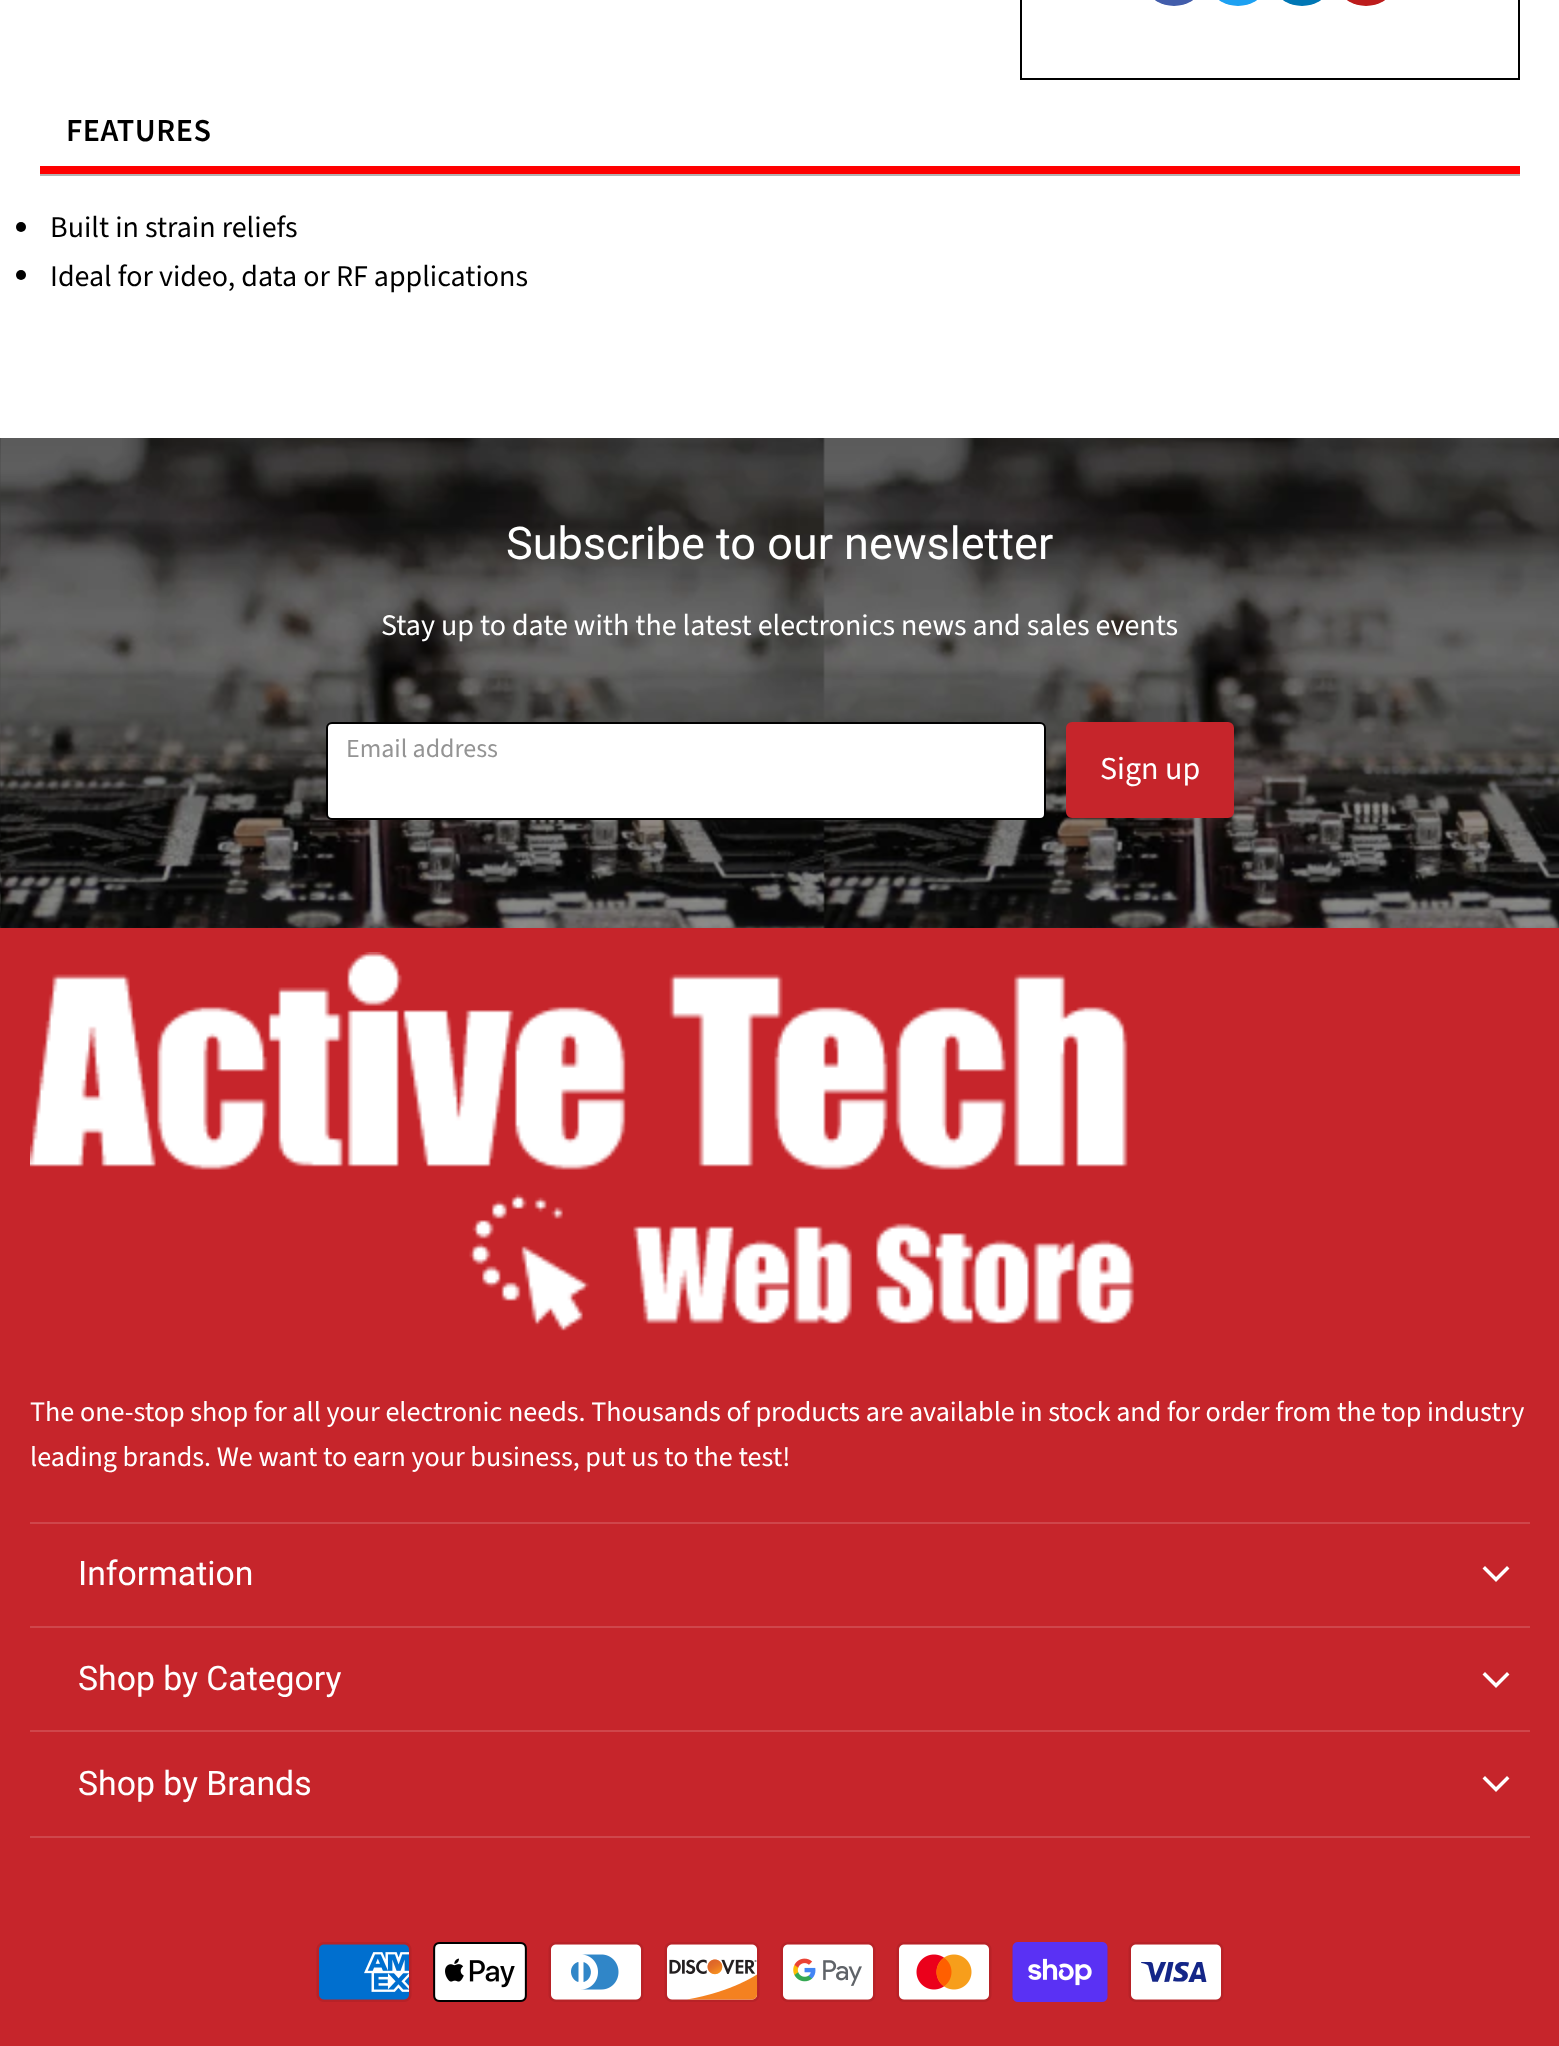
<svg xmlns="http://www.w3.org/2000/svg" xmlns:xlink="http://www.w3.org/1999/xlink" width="1559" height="2046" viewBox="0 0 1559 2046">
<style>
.cls-1{font:600 32px Source Sans Pro;letter-spacing:0.5px;fill:#000000}
.cls-2{font:30px Source Sans Pro;fill:#000000}
.cls-3{font:45px Roboto;fill:#ffffff}
.cls-4{font:30px Source Sans Pro;fill:#ffffff}
.cls-5{font:26px Source Sans Pro;fill:#949494}
.cls-6{font:32px Source Sans Pro;fill:#ffffff}
.cls-7{font:28.12px Source Sans Pro;fill:#ffffff}
.cls-8{font:33.75px Roboto;fill:#ffffff}
</style>
<rect width="100%" height="100%" fill="#ffffff"/>
<rect fill="none" stroke="#000000" stroke-width="2" x="1021" y="-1" width="498" height="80"/>
<rect fill="#425dab" x="1150" y="-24" width="48" height="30" rx="24"/>
<rect fill="#1da1f2" x="1214" y="-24" width="48" height="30" rx="24"/>
<rect fill="#0077b5" x="1278" y="-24" width="48" height="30" rx="24"/>
<rect fill="#bd1c1c" x="1342" y="-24" width="48" height="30" rx="24"/>
<rect fill="#b4b2b2" x="40" y="174" width="1480" height="2"/>
<rect fill="#ff0000" x="40" y="166" width="1480" height="8"/>
<circle fill="#000000" cx="21" cy="227" r="5"/>
<circle fill="#000000" cx="21" cy="275" r="5"/>
<image xlink:href="image0.png" x="0" y="438" width="1559" height="490"/>
<rect fill="#ffffff" stroke="#000000" stroke-width="2" x="327" y="723" width="718" height="96" rx="5"/>
<rect fill="#c6252b" stroke="#c6252b" stroke-width="2" x="1067" y="723" width="166" height="94" rx="5"/>
<rect fill="#c6252b" x="0" y="928" width="1559" height="1118"/>
<rect fill="#cf464b" x="30" y="1522" width="1500" height="2"/>
<image xlink:href="image1.png" x="30" y="952" width="1105" height="379"/>
<rect fill="#cf464b" x="30" y="1626" width="1500" height="2"/>
<path fill="none" stroke="#ffffff" stroke-width="3.5" stroke-linecap="square" d="M1496 1579.5L1507 1568.5M1496 1579.5L1485 1568.5"/>
<rect fill="#cf464b" x="30" y="1730" width="1500" height="2"/>
<path fill="none" stroke="#ffffff" stroke-width="3.5" stroke-linecap="square" d="M1496 1685.5L1507 1674.5M1496 1685.5L1485 1674.5"/>
<rect fill="#cf464b" x="30" y="1836" width="1500" height="2"/>
<path fill="none" stroke="#ffffff" stroke-width="3.5" stroke-linecap="square" d="M1496 1789.5L1507 1778.5M1496 1789.5L1485 1778.5"/>
<image xlink:href="image2.png" x="316" y="1942" width="96" height="60"/>
<image xlink:href="image3.png" x="433" y="1942" width="94" height="60"/>
<image xlink:href="image4.png" x="548" y="1942" width="96" height="60"/>
<image xlink:href="image5.png" x="664" y="1942" width="96" height="60"/>
<image xlink:href="image6.png" x="780" y="1942" width="96" height="60"/>
<image xlink:href="image7.png" x="896" y="1942" width="96" height="60"/>
<image xlink:href="image8.png" x="1012" y="1942" width="96" height="60"/>
<image xlink:href="image9.png" x="1128" y="1942" width="96" height="60"/>
<text class="cls-1" x="66" y="141">FEATURES</text>
<text class="cls-2"><tspan x="50" y="237">Built in strain reliefs</tspan><tspan x="50" y="286">Ideal for video, data or RF applications</tspan></text>
<text class="cls-3" x="506" y="559">Subscribe to our newsletter</text>
<text class="cls-4" x="381" y="635">Stay up to date with the latest electronics news and sales events</text>
<text class="cls-5" x="346" y="757">Email address</text>
<text class="cls-6" x="1100" y="779">Sign up</text>
<text class="cls-7"><tspan x="30" y="1421">The one-stop shop for all your electronic needs. Thousands of products are available in stock and for order from the top industry</tspan><tspan x="30" y="1466">leading brands. We want to earn your business, put us to the test!</tspan></text>
<text class="cls-8" x="78" y="1585">Information</text>
<text class="cls-8" x="78" y="1690">Shop by Category</text>
<text class="cls-8" x="78" y="1795">Shop by Brands</text>
</svg>
